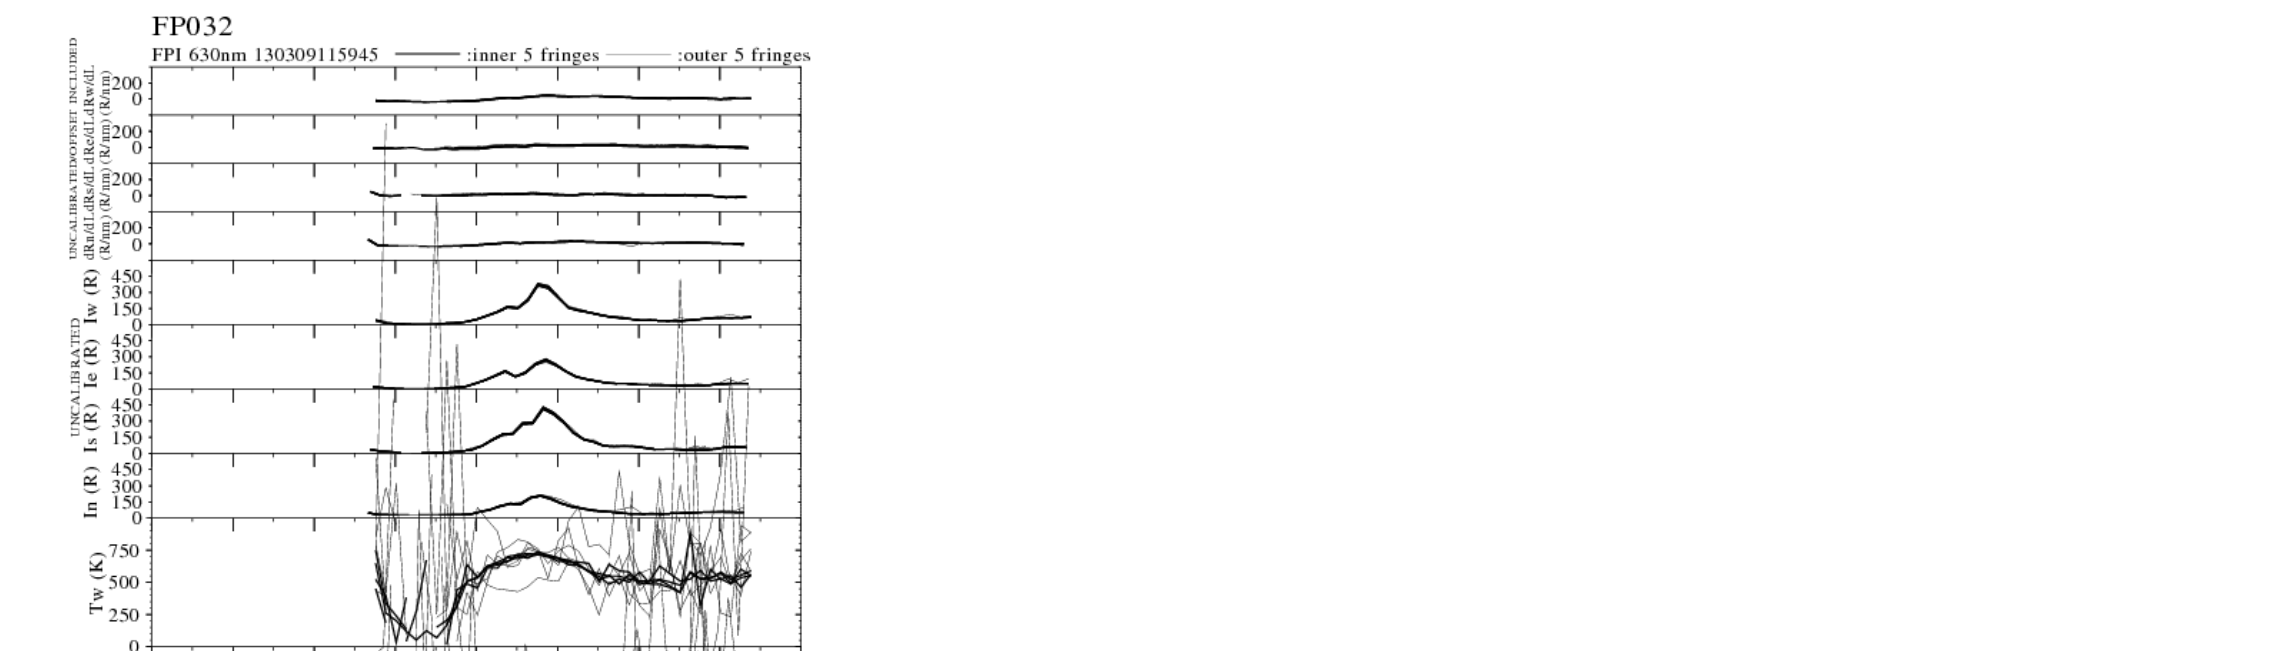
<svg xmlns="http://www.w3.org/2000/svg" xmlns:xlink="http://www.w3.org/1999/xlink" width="2285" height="651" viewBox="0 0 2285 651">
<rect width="100%" height="100%" fill="#ffffff"/>
<image xlink:href="image0.png" x="68" y="16" width="743" height="635"/>
</svg>
